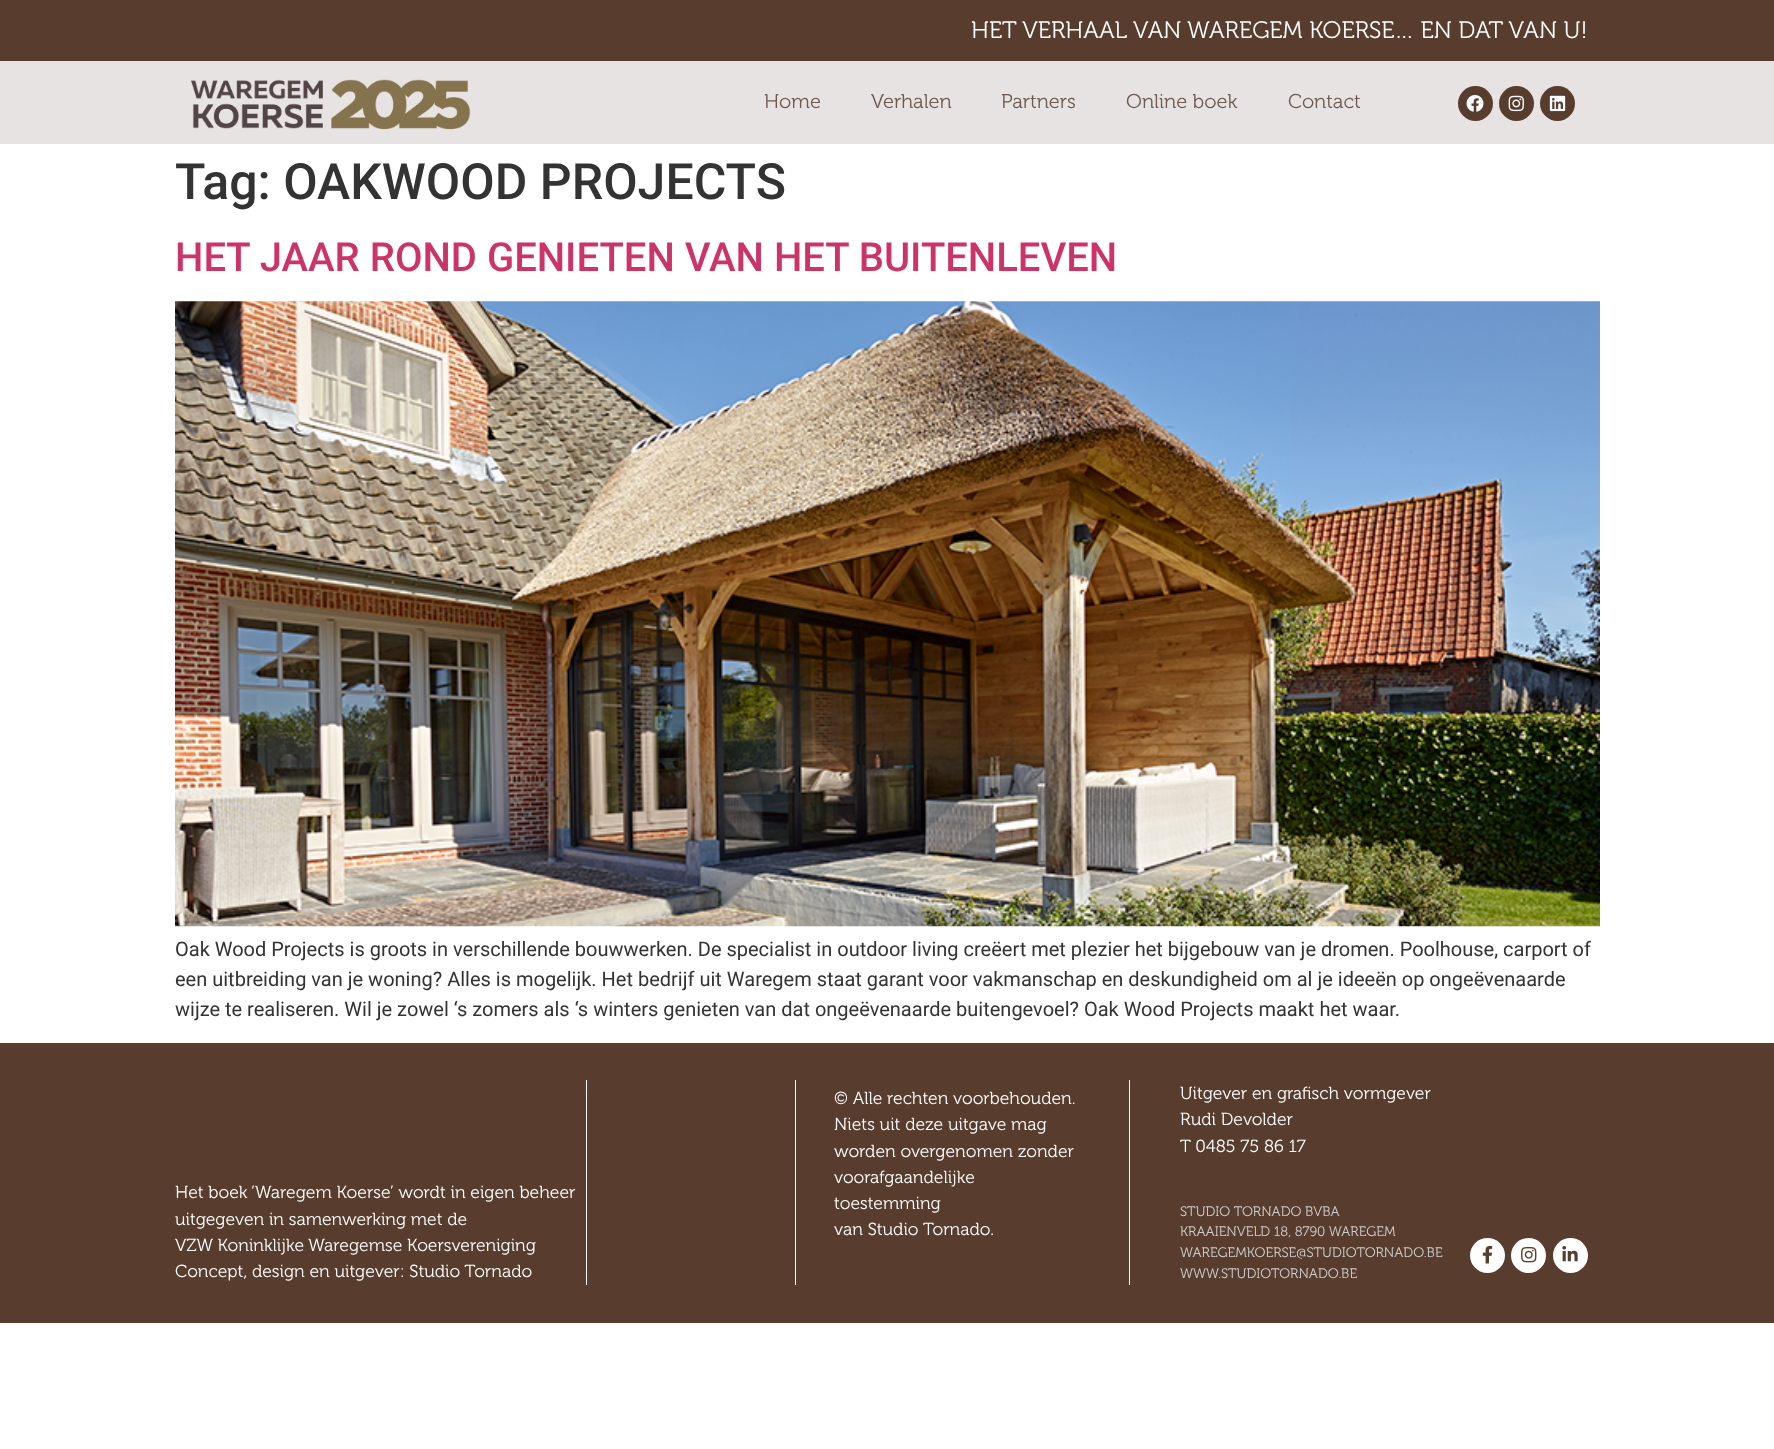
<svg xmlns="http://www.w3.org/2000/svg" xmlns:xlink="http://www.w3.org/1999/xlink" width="1774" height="1449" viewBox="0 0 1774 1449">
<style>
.cls-1{font:300 23.75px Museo;fill:#ffffff}
.cls-2{font:300 20px Museo;fill:#6e5a51}
.cls-3{font:500 50px Roboto;fill:#333333}
.cls-4{font:500 40px Roboto;fill:#cc3366}
.cls-5{font:20px Roboto;fill:#333333}
.cls-6{font:300 17.5px Museo;fill:#ffffff}
.cls-7{font:300 13.75px Museo;fill:#cfcece}
</style>
<rect width="100%" height="100%" fill="#ffffff"/>
<rect fill="#583c2d" x="0" y="0" width="1774" height="61"/>
<rect fill="#e7e3e2" x="0" y="61" width="1774" height="83"/>
<image xlink:href="image0.png" x="191" y="79" width="280" height="51"/>
<circle fill="#583c2d" cx="1475.5" cy="103.5" r="17.5"/>
<image xlink:href="image1.png" x="1466" y="95" width="18" height="17"/>
<circle fill="#583c2d" cx="1516.5" cy="103.5" r="17.5"/>
<image xlink:href="image2.png" x="1508" y="95" width="16" height="17"/>
<circle fill="#583c2d" cx="1557.5" cy="103.5" r="17.5"/>
<image xlink:href="image3.png" x="1549" y="95" width="17" height="17"/>
<image xlink:href="image4.png" x="175" y="301" width="1425" height="626"/>
<rect fill="#583c2d" x="0" y="1043" width="1774" height="280"/>
<rect fill="#ffffff" x="795" y="1080" width="1" height="205"/>
<rect fill="#ffffff" x="586" y="1080" width="1" height="205"/>
<rect fill="#ffffff" x="1129" y="1080" width="1" height="205"/>
<circle fill="#ffffff" cx="1487.5" cy="1255.5" r="17.5"/>
<image xlink:href="image5.png" x="1482" y="1245" width="11" height="19"/>
<circle fill="#ffffff" cx="1528.5" cy="1255.5" r="17.5"/>
<image xlink:href="image6.png" x="1521" y="1247" width="16" height="16"/>
<circle fill="#ffffff" cx="1570.5" cy="1255.5" r="17.5"/>
<image xlink:href="image7.png" x="1562" y="1245" width="16" height="17"/>
<text class="cls-1" x="971" y="38">HET VERHAAL VAN WAREGEM KOERSE… EN DAT VAN U!</text>
<text class="cls-2" x="764" y="108">Home</text>
<text class="cls-2" x="871" y="108">Verhalen</text>
<text class="cls-2" x="1001" y="108">Partners</text>
<text class="cls-2" x="1126" y="108">Online boek</text>
<text class="cls-2" x="1288" y="108">Contact</text>
<text class="cls-3" x="175" y="199">Tag: OAKWOOD PROJECTS</text>
<text class="cls-4" x="175" y="271">HET JAAR ROND GENIETEN VAN HET BUITENLEVEN</text>
<text class="cls-5"><tspan x="175" y="956">Oak Wood Projects is groots in verschillende bouwwerken. De specialist in outdoor living creëert met plezier het bijgebouw van je dromen. Poolhouse, carport of</tspan><tspan x="175" y="986">een uitbreiding van je woning? Alles is mogelijk. Het bedrijf uit Waregem staat garant voor vakmanschap en deskundigheid om al je ideeën op ongeëvenaarde</tspan><tspan x="175" y="1016">wijze te realiseren. Wil je zowel ‘s zomers als ‘s winters genieten van dat ongeëvenaarde buitengevoel? Oak Wood Projects maakt het waar.</tspan></text>
<text class="cls-6"><tspan x="175" y="1198">Het boek ‘Waregem Koerse’ wordt in eigen beheer</tspan><tspan x="175" y="1225">uitgegeven in samenwerking met de</tspan><tspan x="175" y="1251">VZW Koninklijke Waregemse Koersvereniging</tspan><tspan x="175" y="1277">Concept, design en uitgever: Studio Tornado</tspan></text>
<text class="cls-6"><tspan x="834" y="1104">© Alle rechten voorbehouden.</tspan><tspan x="834" y="1130">Niets uit deze uitgave mag</tspan><tspan x="834" y="1157">worden overgenomen zonder</tspan><tspan x="834" y="1183">voorafgaandelijke</tspan><tspan x="834" y="1209">toestemming</tspan><tspan x="834" y="1235">van Studio Tornado.</tspan></text>
<text class="cls-6"><tspan x="1180" y="1099">Uitgever en grafisch vormgever</tspan><tspan x="1180" y="1125">Rudi Devolder</tspan><tspan x="1180" y="1152">T 0485 75 86 17</tspan></text>
<text class="cls-7"><tspan x="1180" y="1216">STUDIO TORNADO BVBA</tspan><tspan x="1180" y="1236">KRAAIENVELD 18, 8790 WAREGEM</tspan><tspan x="1180" y="1257">WAREGEMKOERSE@STUDIOTORNADO.BE</tspan><tspan x="1180" y="1278">WWW.STUDIOTORNADO.BE</tspan></text>
</svg>
